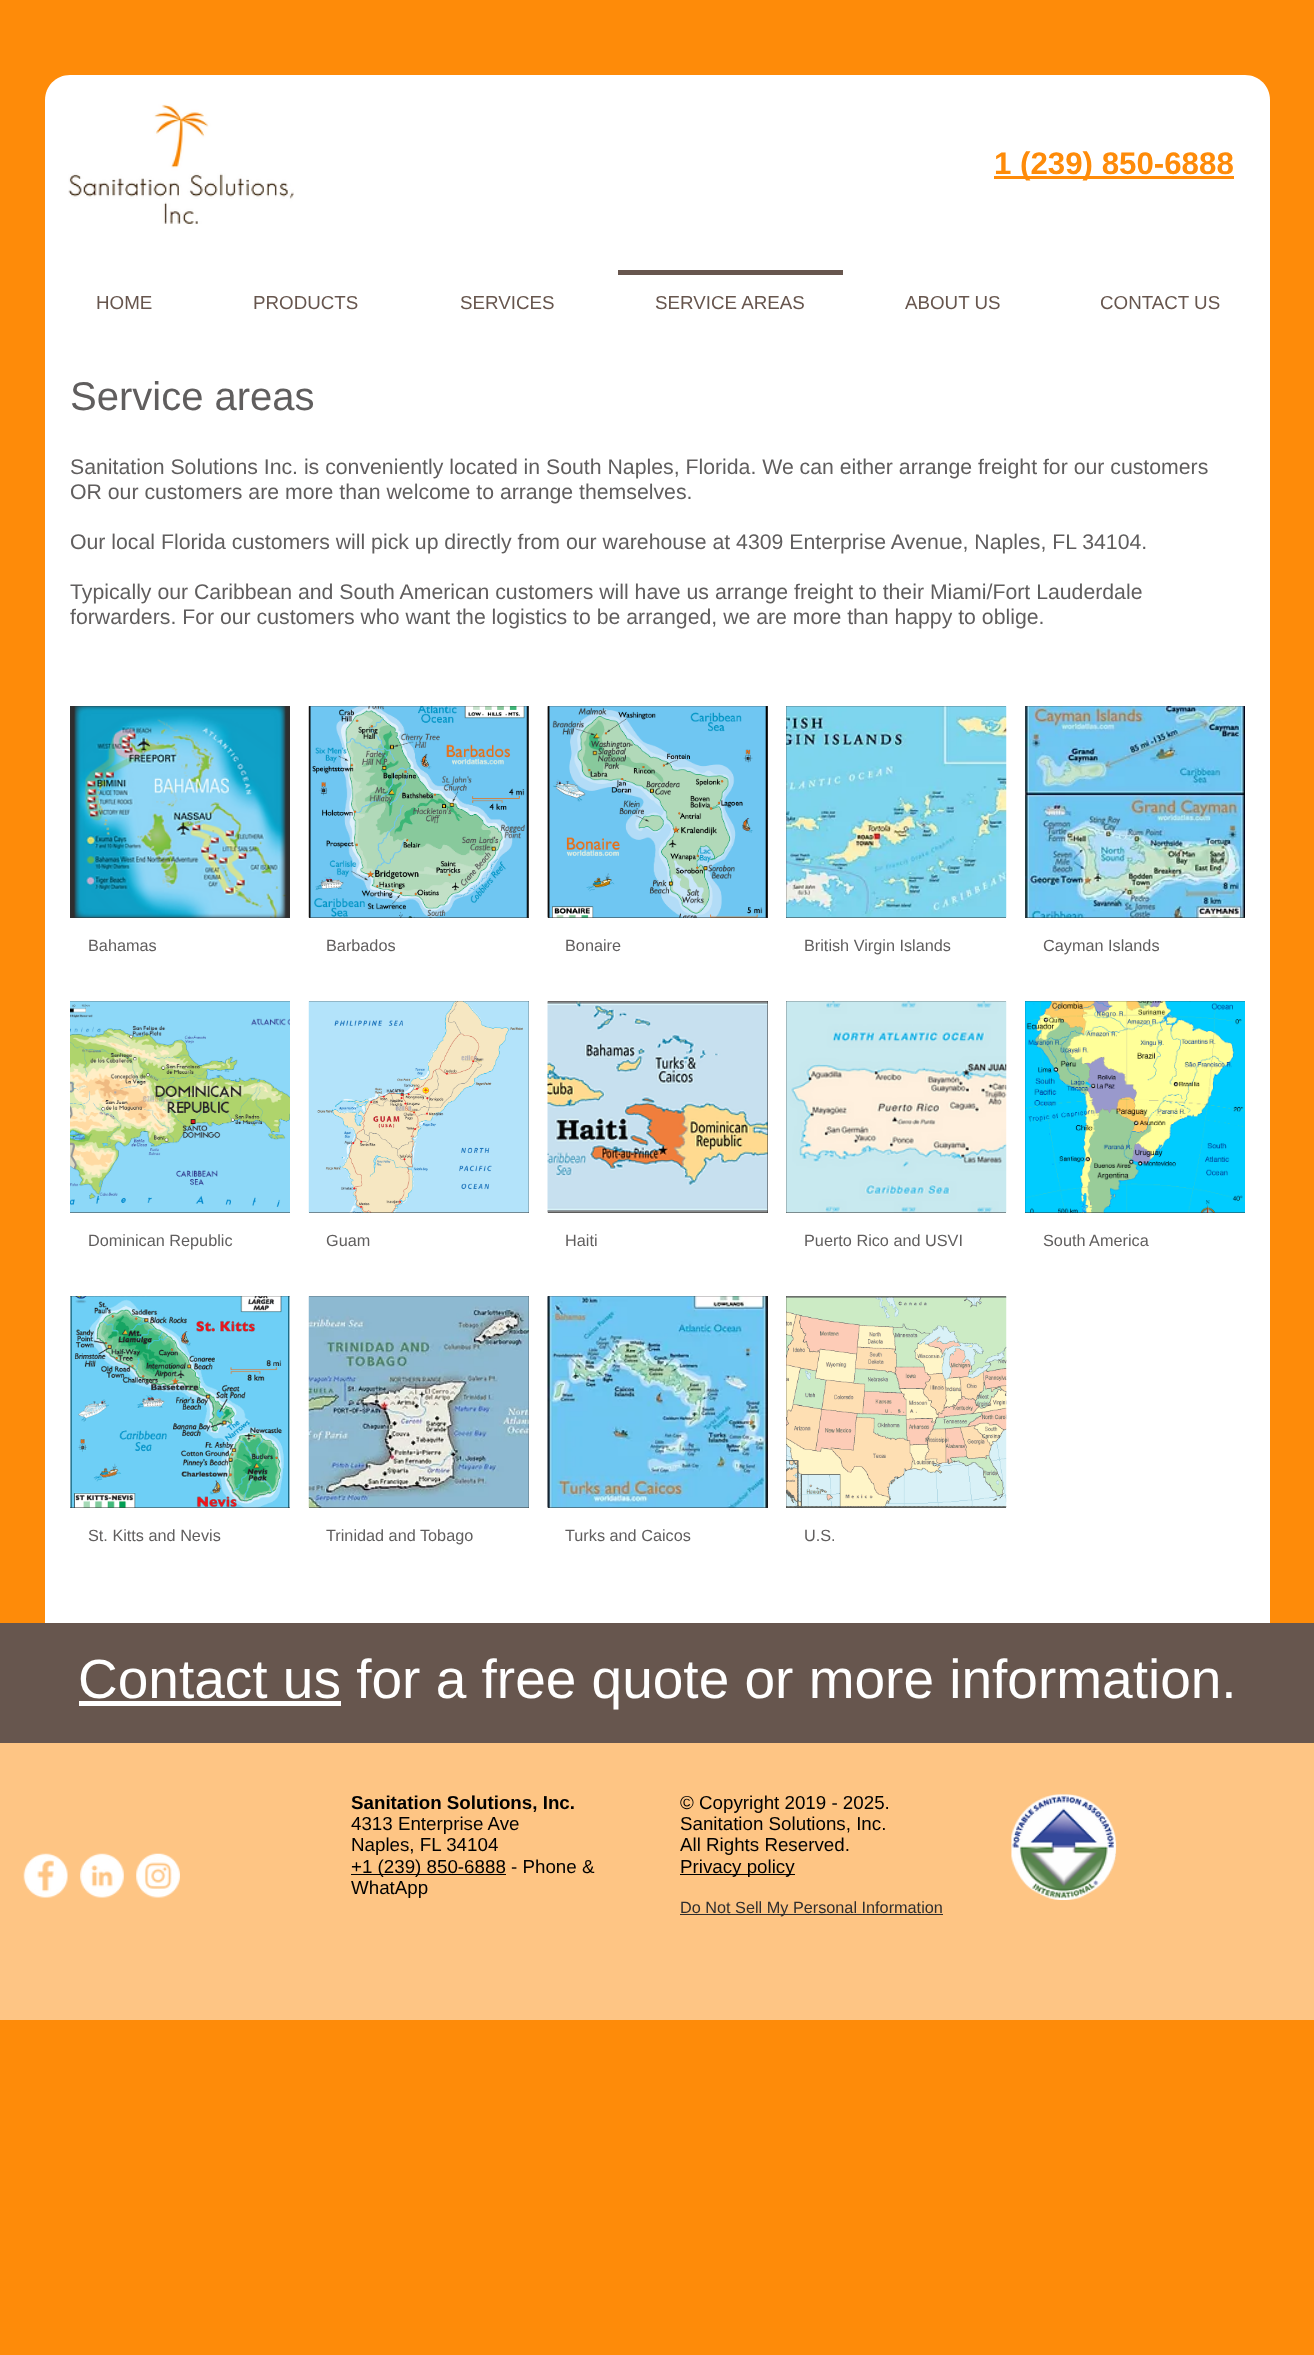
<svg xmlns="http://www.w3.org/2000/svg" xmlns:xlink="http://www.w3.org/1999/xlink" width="1314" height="2355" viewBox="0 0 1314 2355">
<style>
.cls-1{font:bold 31.25px Liberation Sans;fill:#fe8b09}
.cls-2{font:18.75px Liberation Sans;fill:#67564e}
.cls-3{font:40px Liberation Sans;fill:#605e5e}
.cls-4{font:21.25px Liberation Sans;fill:#605e5e}
.cls-5{font:16.25px Liberation Sans;fill:#605e5e}
.cls-6{font:55px Liberation Sans;fill:#ffffff}
.cls-7{font:bold 18.75px Liberation Sans;fill:#000000}
.cls-8{font:18.75px Liberation Sans;fill:#000000}
.cls-9{font:16.25px Liberation Sans;fill:#2f2e2e}
</style>
<rect width="100%" height="100%" fill="#fe8b09"/>
<path fill="#ffffff" d="M70 75H1245C1259 75 1270 86 1270 100V330H45V100C45 86 56 75 70 75Z"/>
<image xlink:href="image0.png" x="68" y="104" width="226" height="120"/>
<rect fill="#fe8b09" x="994" y="176" width="240" height="3"/>
<rect fill="#67564e" x="618" y="270" width="225" height="5"/>
<rect fill="#ffffff" x="45" y="330" width="1225" height="1293"/>
<rect fill="#2f2e2e" x="70" y="706" width="220" height="212"/>
<image xlink:href="image1.png" x="74" y="706" width="213" height="212"/>
<rect fill="#2f2e2e" x="309" y="706" width="220" height="212"/>
<image xlink:href="image2.png" x="308" y="706" width="221" height="212"/>
<rect fill="#2f2e2e" x="548" y="706" width="220" height="212"/>
<image xlink:href="image3.png" x="547" y="706" width="221" height="212"/>
<rect fill="#2f2e2e" x="786" y="706" width="220" height="212"/>
<image xlink:href="image4.png" x="786" y="706" width="221" height="212"/>
<rect fill="#2f2e2e" x="1025" y="706" width="220" height="212"/>
<image xlink:href="image5.png" x="1025" y="706" width="220" height="212"/>
<rect fill="#2f2e2e" x="70" y="1001" width="220" height="212"/>
<image xlink:href="image6.png" x="70" y="1001" width="220" height="212"/>
<rect fill="#2f2e2e" x="309" y="1001" width="220" height="212"/>
<image xlink:href="image7.png" x="308" y="1001" width="221" height="212"/>
<rect fill="#2f2e2e" x="548" y="1001" width="220" height="212"/>
<image xlink:href="image8.png" x="547" y="1001" width="221" height="212"/>
<rect fill="#2f2e2e" x="786" y="1001" width="220" height="212"/>
<image xlink:href="image9.png" x="786" y="1001" width="221" height="212"/>
<rect fill="#2f2e2e" x="1025" y="1001" width="220" height="212"/>
<image xlink:href="image10.png" x="1025" y="1001" width="220" height="212"/>
<rect fill="#2f2e2e" x="70" y="1296" width="220" height="212"/>
<image xlink:href="image11.png" x="70" y="1296" width="220" height="212"/>
<rect fill="#2f2e2e" x="309" y="1296" width="220" height="212"/>
<image xlink:href="image12.png" x="308" y="1296" width="221" height="212"/>
<rect fill="#2f2e2e" x="548" y="1296" width="220" height="212"/>
<image xlink:href="image13.png" x="547" y="1296" width="221" height="212"/>
<rect fill="#2f2e2e" x="786" y="1296" width="220" height="212"/>
<image xlink:href="image14.png" x="786" y="1296" width="221" height="212"/>
<rect fill="#67564e" x="0" y="1623" width="1314" height="120"/>
<rect fill="#ffffff" x="79" y="1701" width="262" height="5"/>
<rect fill="#fec584" x="0" y="1743" width="1314" height="277"/>
<image xlink:href="image15.png" x="23" y="1853" width="45" height="45"/>
<image xlink:href="image16.png" x="80" y="1853" width="44" height="45"/>
<image xlink:href="image17.png" x="136" y="1853" width="44" height="45"/>
<rect fill="#000000" x="351" y="1874" width="155" height="1"/>
<rect fill="#000000" x="680" y="1874" width="115" height="1"/>
<rect fill="#2f2e2e" x="680" y="1914" width="263" height="1"/>
<image xlink:href="image18.png" x="1011" y="1794" width="106" height="106"/>
<text class="cls-1" x="994" y="174">1 (239) 850-6888</text>
<text class="cls-2" x="96" y="309">HOME</text>
<text class="cls-2" x="253" y="309">PRODUCTS</text>
<text class="cls-2" x="460" y="309">SERVICES</text>
<text class="cls-2" x="655" y="309">SERVICE AREAS</text>
<text class="cls-2" x="905" y="309">ABOUT US</text>
<text class="cls-2" x="1100" y="309">CONTACT US</text>
<text class="cls-3" x="70" y="410">Service areas</text>
<text class="cls-4"><tspan x="70" y="474">Sanitation Solutions Inc. is conveniently located in South Naples, Florida. We can either arrange freight for our customers</tspan><tspan x="70" y="499">OR our customers are more than welcome to arrange themselves.</tspan></text>
<text class="cls-4" x="70" y="549">Our local Florida customers will pick up directly from our warehouse at 4309 Enterprise Avenue, Naples, FL 34104.</text>
<text class="cls-4"><tspan x="70" y="599">Typically our Caribbean and South American customers will have us arrange freight to their Miami/Fort Lauderdale</tspan><tspan x="70" y="624">forwarders. For our customers who want the logistics to be arranged, we are more than happy to oblige.</tspan></text>
<text class="cls-5" x="88" y="951">Bahamas</text>
<text class="cls-5" x="326" y="951">Barbados</text>
<text class="cls-5" x="565" y="951">Bonaire</text>
<text class="cls-5" x="804" y="951">British Virgin Islands</text>
<text class="cls-5" x="1043" y="951">Cayman Islands</text>
<text class="cls-5" x="88" y="1246">Dominican Republic</text>
<text class="cls-5" x="326" y="1246">Guam</text>
<text class="cls-5" x="565" y="1246">Haiti</text>
<text class="cls-5" x="804" y="1246">Puerto Rico and USVI</text>
<text class="cls-5" x="1043" y="1246">South America</text>
<text class="cls-5" x="88" y="1541">St. Kitts and Nevis</text>
<text class="cls-5" x="326" y="1541">Trinidad and Tobago</text>
<text class="cls-5" x="565" y="1541">Turks and Caicos</text>
<text class="cls-5" x="804" y="1541">U.S.</text>
<text class="cls-6" x="78" y="1698">Contact us for a free quote or more information.</text>
<text class="cls-7" x="351" y="1809">Sanitation Solutions, Inc.</text>
<text class="cls-8"><tspan x="351" y="1830">4313 Enterprise Ave</tspan><tspan x="351" y="1851">Naples, FL 34104</tspan><tspan x="351" y="1873">+1 (239) 850-6888 - Phone &amp;</tspan><tspan x="351" y="1894">WhatApp</tspan></text>
<text class="cls-8"><tspan x="680" y="1809">© Copyright 2019 - 2025.</tspan><tspan x="680" y="1830">Sanitation Solutions, Inc.</tspan><tspan x="680" y="1851">All Rights Reserved.</tspan><tspan x="680" y="1873">Privacy policy</tspan></text>
<text class="cls-9" x="680" y="1913">Do Not Sell My Personal Information</text>
</svg>
